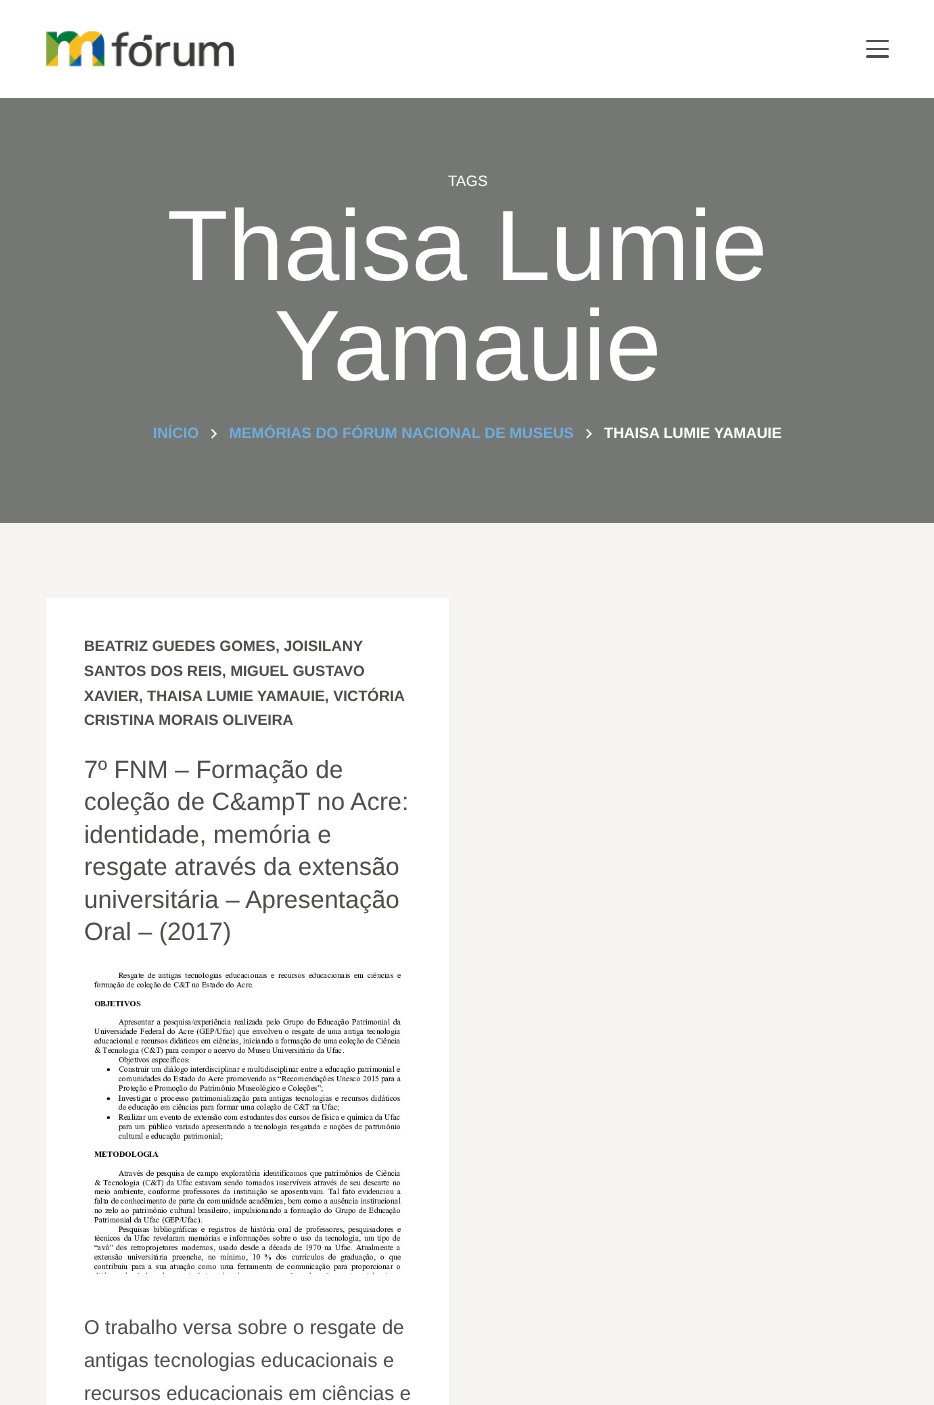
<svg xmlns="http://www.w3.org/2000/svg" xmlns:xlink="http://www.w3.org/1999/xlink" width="934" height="1405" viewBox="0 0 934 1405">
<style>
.cls-1{font:15px Liberation Sans;fill:#ffffff}
.cls-2{font:100px Liberation Sans;fill:#ffffff}
.cls-3{font:bold 15px Liberation Sans;fill:#70addc}
.cls-4{font:bold 15px Liberation Sans;fill:#ffffff}
.cls-5{font:bold 15px Liberation Sans;fill:#4e4b49}
.cls-6{font:25px Liberation Sans;fill:#4e4b49}
.cls-7{font:20px Liberation Sans;fill:#4e4b49}
</style>
<rect width="100%" height="100%" fill="#f6f4f3"/>
<rect fill="#ffffff" x="0" y="0" width="934" height="98"/>
<image xlink:href="image0.png" x="46" y="31" width="188" height="36"/>
<rect fill="#4e4b49" x="866" y="40" width="23" height="2" rx="1"/>
<rect fill="#4e4b49" x="866" y="48" width="23" height="2" rx="1"/>
<rect fill="#4e4b49" x="866" y="55" width="23" height="3" rx="1.5"/>
<rect fill="#747774" x="0" y="98" width="934" height="425"/>
<image xlink:href="image1.png" x="211" y="429" width="6" height="10"/>
<image xlink:href="image1.png" x="586" y="429" width="6" height="10"/>
<rect fill="#ffffff" x="46" y="598" width="403" height="807"/>
<image xlink:href="image2.png" x="90" y="972" width="313" height="302"/>
<text class="cls-1" x="448" y="186">TAGS</text>
<text class="cls-2" x="167" y="280">Thaisa Lumie</text>
<text class="cls-2" x="274" y="380">Yamauie</text>
<text class="cls-3" x="153" y="438">INÍCIO</text>
<text class="cls-3" x="229" y="438">MEMÓRIAS DO FÓRUM NACIONAL DE MUSEUS</text>
<text class="cls-4" x="604" y="438">THAISA LUMIE YAMAUIE</text>
<text class="cls-5"><tspan x="84" y="651">BEATRIZ GUEDES GOMES, JOISILANY</tspan><tspan x="84" y="676">SANTOS DOS REIS, MIGUEL GUSTAVO</tspan><tspan x="84" y="701">XAVIER, THAISA LUMIE YAMAUIE, VICTÓRIA</tspan><tspan x="84" y="725">CRISTINA MORAIS OLIVEIRA</tspan></text>
<text class="cls-6"><tspan x="84" y="778">7º FNM – Formação de</tspan><tspan x="84" y="810">coleção de C&amp;ampT no Acre:</tspan><tspan x="84" y="843">identidade, memória e</tspan><tspan x="84" y="875">resgate através da extensão</tspan><tspan x="84" y="908">universitária – Apresentação</tspan><tspan x="84" y="940">Oral – (2017)</tspan></text>
<text class="cls-7"><tspan x="84" y="1334">O trabalho versa sobre o resgate de</tspan><tspan x="84" y="1367">antigas tecnologias educacionais e</tspan><tspan x="84" y="1400">recursos educacionais em ciências e</tspan></text>
</svg>
